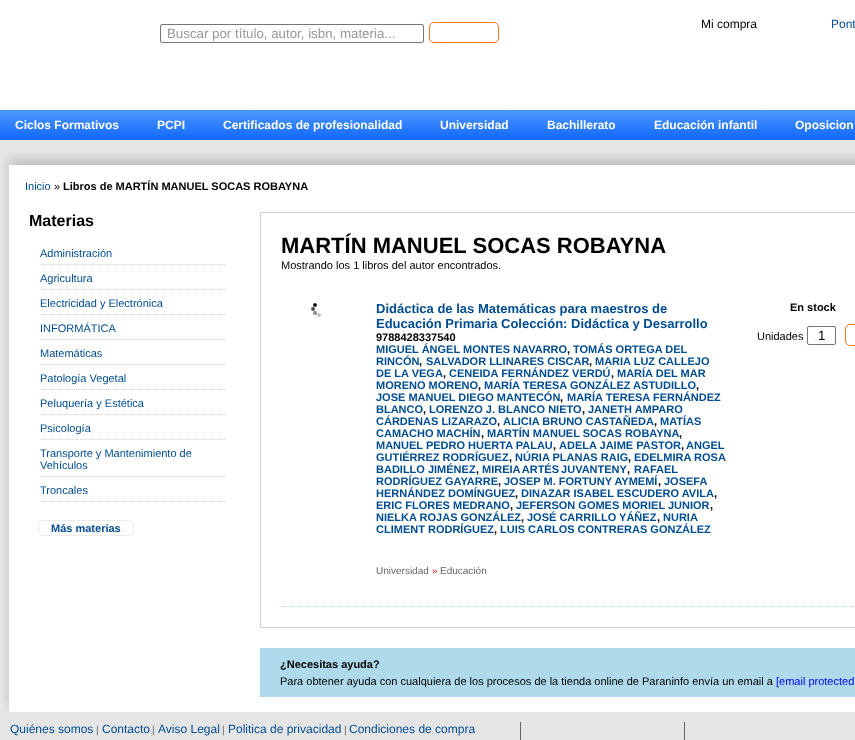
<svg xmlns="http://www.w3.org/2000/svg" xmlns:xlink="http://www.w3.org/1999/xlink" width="855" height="740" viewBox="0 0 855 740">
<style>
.cls-1{font:12px Liberation Sans;fill:#000000}
.cls-2{font:12px Liberation Sans;fill:#004c91}
.cls-3{font:13.3px Liberation Sans;fill:#979898}
.cls-4{font:bold 12px Liberation Sans;fill:#ffffff}
.cls-5{font:11px Liberation Sans;fill:#004c91}
.cls-6{font:11px Liberation Sans;fill:#000000}
.cls-7{font:bold 11px Liberation Sans;fill:#000000}
.cls-8{font:bold 16px Liberation Sans;fill:#000000}
.cls-9{font:bold 11px Liberation Sans;fill:#004c91}
.cls-10{font:bold 22px Liberation Sans;fill:#000000}
.cls-11{font:bold 13px Liberation Sans;fill:#004c91}
.cls-12{font:10px Liberation Sans;fill:#666666}
.cls-13{font:10px Liberation Sans;fill:#ff0000}
.cls-14{font:13.3px Liberation Sans;fill:#000000}
.cls-15{font:11px Liberation Sans;fill:#0000ee}
</style>
<defs>
<linearGradient id="g1" gradientUnits="userSpaceOnUse" x1="0" y1="110" x2="0" y2="140"><stop offset="0" stop-color="#4e97ff"/><stop offset="1" stop-color="#1068fe"/></linearGradient>
</defs>
<rect width="100%" height="100%" fill="#e5e5e5"/>
<rect fill="#ffffff" x="0" y="0" width="855" height="110"/>
<rect fill="none" stroke="#767676" x="160.5" y="24.5" width="263" height="18" rx="1.5"/>
<rect fill="none" stroke="#fc7217" x="429.5" y="22.5" width="69" height="20" rx="4.5"/>
<rect fill="url(#g1)" x="0" y="110" width="855" height="30"/>
<image xlink:href="image0.png" x="3" y="153" width="852" height="17"/>
<image xlink:href="image1.png" x="3" y="170" width="852" height="532"/>
<path fill="none" stroke="#d1d1d1" stroke-dasharray="1 1" d="M40 264.5H225"/>
<path fill="none" stroke="#d1d1d1" stroke-dasharray="1 1" d="M40 289.5H225"/>
<path fill="none" stroke="#d1d1d1" stroke-dasharray="1 1" d="M40 314.5H225"/>
<path fill="none" stroke="#d1d1d1" stroke-dasharray="1 1" d="M40 339.5H225"/>
<path fill="none" stroke="#d1d1d1" stroke-dasharray="1 1" d="M40 364.5H225"/>
<path fill="none" stroke="#d1d1d1" stroke-dasharray="1 1" d="M40 389.5H225"/>
<path fill="none" stroke="#d1d1d1" stroke-dasharray="1 1" d="M40 414.5H225"/>
<path fill="none" stroke="#d1d1d1" stroke-dasharray="1 1" d="M40 439.5H225"/>
<path fill="none" stroke="#d1d1d1" stroke-dasharray="1 1" d="M40 476.5H225"/>
<path fill="none" stroke="#d1d1d1" stroke-dasharray="1 1" d="M40 501.5H225"/>
<rect fill="none" stroke="#ebebeb" x="38.5" y="520.5" width="95" height="15" rx="4.5"/>
<rect fill="none" stroke="#d1d1d1" x="260.5" y="212.5" width="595" height="415"/>
<path fill="none" stroke="#aedaeb" stroke-dasharray="1 1" d="M281 606.5H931"/>
<image xlink:href="image2.png" x="311" y="303" width="10" height="14"/>
<rect fill="none" stroke="#767676" x="807.5" y="326.5" width="28" height="18" rx="1.5"/>
<rect fill="none" stroke="#fc7217" x="845.5" y="324.5" width="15" height="21" rx="4.5"/>
<rect fill="#aedaeb" x="260" y="648" width="595" height="49"/>
<image xlink:href="image3.png" x="4" y="702" width="851" height="10"/>
<rect fill="#666666" x="520" y="722" width="1" height="18"/>
<rect fill="#666666" x="684" y="722" width="1" height="18"/>
<text class="cls-1" x="701" y="28">Mi compra</text>
<text class="cls-2" x="831" y="28">Pont</text>
<text class="cls-3" x="167" y="38">Buscar por título, autor, isbn, materia...</text>
<text class="cls-4" x="15" y="129">Ciclos Formativos</text>
<text class="cls-4" x="157" y="129">PCPI</text>
<text class="cls-4" x="223" y="129">Certificados de profesionalidad</text>
<text class="cls-4" x="440" y="129">Universidad</text>
<text class="cls-4" x="547" y="129">Bachillerato</text>
<text class="cls-4" x="654" y="129">Educación infantil</text>
<text class="cls-4" x="795" y="129">Oposicion</text>
<text class="cls-5" x="25" y="190">Inicio</text>
<text class="cls-6" x="54" y="190">»</text>
<text class="cls-7" x="63" y="190">Libros de MARTÍN MANUEL SOCAS ROBAYNA</text>
<text class="cls-8" x="29" y="226">Materias</text>
<text class="cls-5" x="40" y="257">Administración</text>
<text class="cls-5" x="40" y="282">Agricultura</text>
<text class="cls-5" x="40" y="307">Electricidad y Electrónica</text>
<text class="cls-5" x="40" y="332">INFORMÁTICA</text>
<text class="cls-5" x="40" y="357">Matemáticas</text>
<text class="cls-5" x="40" y="382">Patología Vegetal</text>
<text class="cls-5" x="40" y="407">Peluquería y Estética</text>
<text class="cls-5" x="40" y="432">Psicología</text>
<text class="cls-5"><tspan x="40" y="457">Transporte y Mantenimiento de</tspan><tspan x="40" y="469">Vehículos</tspan></text>
<text class="cls-5" x="40" y="494">Troncales</text>
<text class="cls-9" x="51" y="532">Más materias</text>
<text class="cls-10" x="281" y="253">MARTÍN MANUEL SOCAS ROBAYNA</text>
<text class="cls-6" x="281" y="269">Mostrando los 1 libros del autor encontrados.</text>
<text class="cls-11"><tspan x="376" y="313">Didáctica de las Matemáticas para maestros de</tspan><tspan x="376" y="328">Educación Primaria Colección: Didáctica y Desarrollo</tspan></text>
<text class="cls-7" x="376" y="341">9788428337540</text>
<text class="cls-9" x="376" y="353">MIGUEL ÁNGEL MONTES NAVARRO</text>
<text class="cls-7" x="567" y="353">,</text>
<text class="cls-9" x="573" y="353">TOMÁS ORTEGA DEL</text>
<text class="cls-9" x="376" y="365">RINCÓN</text>
<text class="cls-7" x="419" y="365">,</text>
<text class="cls-9" x="426" y="365">SALVADOR LLINARES CISCAR</text>
<text class="cls-7" x="589" y="365">,</text>
<text class="cls-9" x="595" y="365">MARIA LUZ CALLEJO</text>
<text class="cls-9" x="376" y="377">DE LA VEGA</text>
<text class="cls-7" x="443" y="377">,</text>
<text class="cls-9" x="449" y="377">CENEIDA FERNÁNDEZ VERDÚ</text>
<text class="cls-7" x="611" y="377">,</text>
<text class="cls-9" x="617" y="377">MARÍA DEL MAR</text>
<text class="cls-9" x="376" y="389">MORENO MORENO</text>
<text class="cls-7" x="478" y="389">,</text>
<text class="cls-9" x="484" y="389">MARÍA TERESA GONZÁLEZ ASTUDILLO</text>
<text class="cls-7" x="696" y="389">,</text>
<text class="cls-9" x="376" y="401">JOSE MANUEL DIEGO MANTECÓN</text>
<text class="cls-7" x="560" y="401">,</text>
<text class="cls-9" x="567" y="401">MARÍA TERESA FERNÁNDEZ</text>
<text class="cls-9" x="376" y="413">BLANCO</text>
<text class="cls-7" x="423" y="413">,</text>
<text class="cls-9" x="429" y="413">LORENZO J. BLANCO NIETO</text>
<text class="cls-7" x="582" y="413">,</text>
<text class="cls-9" x="588" y="413">JANETH AMPARO</text>
<text class="cls-9" x="376" y="425">CÁRDENAS LIZARAZO</text>
<text class="cls-7" x="497" y="425">,</text>
<text class="cls-9" x="503" y="425">ALICIA BRUNO CASTAÑEDA</text>
<text class="cls-7" x="654" y="425">,</text>
<text class="cls-9" x="660" y="425">MATÍAS</text>
<text class="cls-9" x="376" y="437">CAMACHO MACHÍN</text>
<text class="cls-7" x="481" y="437">,</text>
<text class="cls-9" x="487" y="437">MARTÍN MANUEL SOCAS ROBAYNA</text>
<text class="cls-7" x="679" y="437">,</text>
<text class="cls-9" x="376" y="449">MANUEL PEDRO HUERTA PALAU</text>
<text class="cls-7" x="553" y="449">,</text>
<text class="cls-9" x="559" y="449">ADELA JAIME PASTOR</text>
<text class="cls-7" x="681" y="449">,</text>
<text class="cls-9" x="686" y="449">ANGEL</text>
<text class="cls-9" x="376" y="461">GUTIÉRREZ RODRÍGUEZ</text>
<text class="cls-7" x="509" y="461">,</text>
<text class="cls-9" x="515" y="461">NÚRIA PLANAS RAIG</text>
<text class="cls-7" x="628" y="461">,</text>
<text class="cls-9" x="634" y="461">EDELMIRA ROSA</text>
<text class="cls-9" x="376" y="473">BADILLO JIMÉNEZ</text>
<text class="cls-7" x="476" y="473">,</text>
<text class="cls-9" x="482" y="473" word-spacing="-1">MIREIA ARTÉS JUVANTENY</text>
<text class="cls-7" x="627" y="473">,</text>
<text class="cls-9" x="634" y="473">RAFAEL</text>
<text class="cls-9" x="376" y="485">RODRÍGUEZ GAYARRE</text>
<text class="cls-7" x="498" y="485">,</text>
<text class="cls-9" x="504" y="485">JOSEP M. FORTUNY AYMEMÍ</text>
<text class="cls-7" x="658" y="485">,</text>
<text class="cls-9" x="664" y="485">JOSEFA</text>
<text class="cls-9" x="376" y="497">HERNÁNDEZ DOMÍNGUEZ</text>
<text class="cls-7" x="515" y="497">,</text>
<text class="cls-9" x="521" y="497">DINAZAR ISABEL ESCUDERO AVILA</text>
<text class="cls-7" x="714" y="497">,</text>
<text class="cls-9" x="376" y="509">ERIC FLORES MEDRANO</text>
<text class="cls-7" x="510" y="509">,</text>
<text class="cls-9" x="516" y="509">JEFERSON GOMES MORIEL JUNIOR</text>
<text class="cls-7" x="710" y="509">,</text>
<text class="cls-9" x="376" y="521">NIELKA ROJAS GONZÁLEZ</text>
<text class="cls-7" x="521" y="521">,</text>
<text class="cls-9" x="527" y="521">JOSÉ CARRILLO YÁÑEZ</text>
<text class="cls-7" x="657" y="521">,</text>
<text class="cls-9" x="663" y="521">NURIA</text>
<text class="cls-9" x="376" y="533">CLIMENT RODRÍGUEZ</text>
<text class="cls-7" x="494" y="533">,</text>
<text class="cls-9" x="500" y="533">LUIS CARLOS CONTRERAS GONZÁLEZ</text>
<text class="cls-12" x="376" y="574">Universidad</text>
<text class="cls-13" x="432" y="574">»</text>
<text class="cls-12" x="440" y="574">Educación</text>
<text class="cls-7" x="790" y="311">En stock</text>
<text class="cls-6" x="757" y="340">Unidades</text>
<text class="cls-14" x="818" y="340">1</text>
<text class="cls-7" x="280" y="668">¿Necesitas ayuda?</text>
<text class="cls-6" x="280" y="685">Para obtener ayuda con cualquiera de los procesos de la tienda online de Paraninfo envía un email a</text>
<text class="cls-15" x="776" y="685">[email protected</text>
<text class="cls-2" x="10" y="733">Quiénes somos</text>
<text class="cls-12" x="96" y="733">|</text>
<text class="cls-2" x="102" y="733">Contacto</text>
<text class="cls-12" x="152" y="733">|</text>
<text class="cls-2" x="158" y="733">Aviso Legal</text>
<text class="cls-12" x="222" y="733">|</text>
<text class="cls-2" x="228" y="733">Politica de privacidad</text>
<text class="cls-12" x="344" y="733">|</text>
<text class="cls-2" x="349" y="733">Condiciones de compra</text>
</svg>
